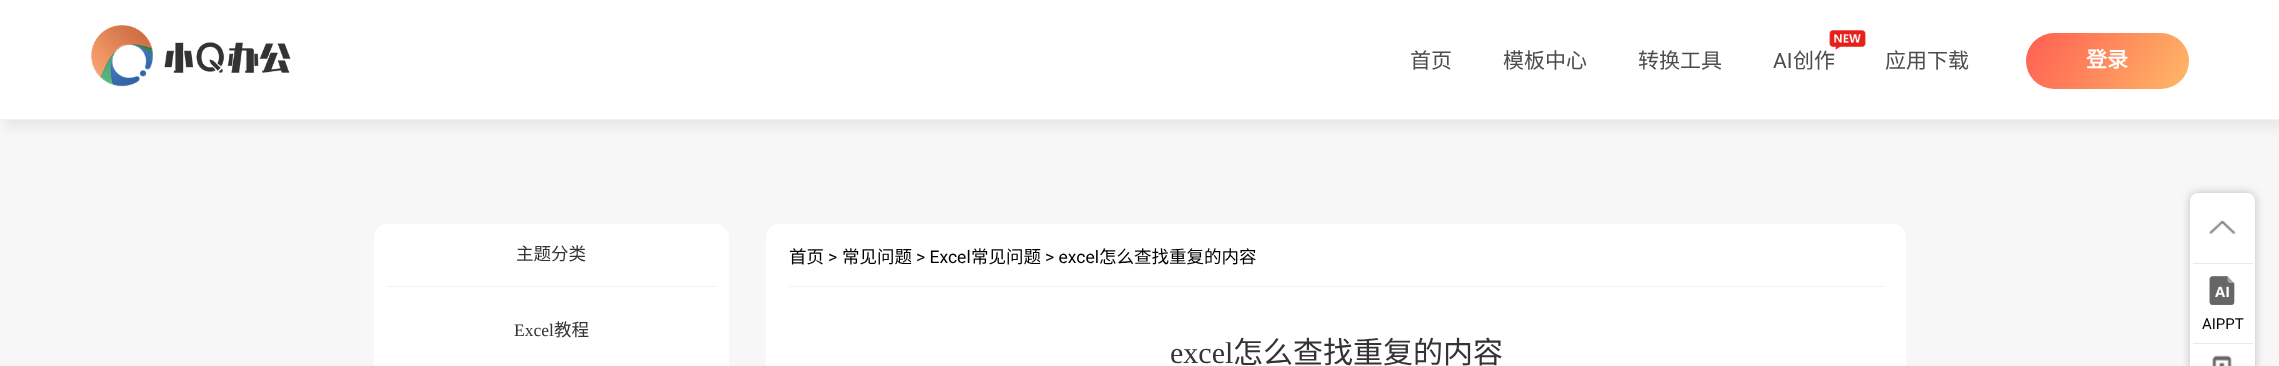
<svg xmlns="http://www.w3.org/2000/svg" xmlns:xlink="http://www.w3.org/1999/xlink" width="2279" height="366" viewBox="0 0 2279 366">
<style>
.cls-1{font:21px Noto Sans CJK SC;fill:#4d4d4d}
.cls-2{font:21px Roboto;fill:#4d4d4d}
.cls-3{font:bold 21px Noto Sans CJK SC;fill:#ffffff}
.cls-4{font:17.5px Noto Sans CJK SC;fill:#333333}
.cls-5{font:17.5px Liberation Serif;fill:#333333}
.cls-6{font:17.5px Noto Sans CJK SC;fill:#000000}
.cls-7{font:17.5px Roboto;fill:#000000}
.cls-8{font:30px Liberation Serif;fill:#333333}
.cls-9{font:30px Noto Sans CJK SC;fill:#333333}
.cls-10{font:15px Roboto;fill:#000000}
</style>
<defs>
<linearGradient id="g1" gradientUnits="userSpaceOnUse" x1="2177" y1="106" x2="2038" y2="15"><stop offset="0" stop-color="#feb867"/><stop offset="1" stop-color="#ff5e52"/></linearGradient>
</defs>
<rect width="100%" height="100%" fill="#f7f7f7"/>
<rect fill="#000000" fill-opacity="0.06" filter="blur(5.5px)" x="4" y="8" width="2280" height="120"/>
<rect fill="#ffffff" x="0" y="0" width="2279" height="119"/>
<rect fill="#f1f2f4" x="0" y="119" width="2279" height="1"/>
<image xlink:href="image0.png" x="91" y="25" width="200" height="62"/>
<image xlink:href="image1.png" x="1829" y="30" width="37" height="20"/>
<rect fill="url(#g1)" x="2026" y="33" width="163" height="56" rx="28"/>
<rect fill="#ffffff" x="374" y="224" width="355" height="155" rx="13"/>
<rect fill="#f1f2f6" x="386" y="286" width="330" height="1"/>
<rect fill="#ffffff" x="766" y="224" width="1140" height="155" rx="13"/>
<rect fill="#f1f2f6" x="789" y="286" width="1095" height="1"/>
<rect fill="#bbbbbb" filter="blur(4px)" x="2190" y="193" width="65" height="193" rx="8"/>
<rect fill="#ffffff" x="2190" y="193" width="65" height="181" rx="8"/>
<image xlink:href="image2.png" x="2209" y="220" width="27" height="14"/>
<rect fill="#e9e9ea" x="2193" y="263" width="60" height="1"/>
<image xlink:href="image3.png" x="2209" y="276" width="26" height="29"/>
<rect fill="#e9e9ea" x="2193" y="343" width="60" height="1"/>
<image xlink:href="image4.png" x="2212" y="355" width="20" height="11"/>
<text class="cls-1" x="1410" y="68">首页</text>
<text class="cls-1" x="1503" y="68">模板中心</text>
<text class="cls-1" x="1638" y="68">转换工具</text>
<text class="cls-2" x="1773" y="68">AI</text>
<text class="cls-1" x="1793" y="68">创作</text>
<text class="cls-1" x="1885" y="68">应用下载</text>
<text class="cls-3" x="2086" y="67">登录</text>
<text class="cls-4" x="516" y="260">主题分类</text>
<text class="cls-5" x="514" y="336">Excel</text>
<text class="cls-4" x="554" y="336">教程</text>
<text class="cls-6" x="789" y="263">首页</text>
<text class="cls-7" x="828" y="263">&gt;</text>
<text class="cls-6" x="842" y="263">常见问题</text>
<text class="cls-7" x="916" y="263">&gt; Excel</text>
<text class="cls-6" x="971" y="263">常见问题</text>
<text class="cls-7" x="1045" y="263">&gt; excel</text>
<text class="cls-6" x="1099" y="263">怎么查找重复的内容</text>
<text class="cls-8" x="1170" y="363">excel</text>
<text class="cls-9" x="1233" y="363">怎么查找重复的内容</text>
<text class="cls-10" x="2202" y="329">AIPPT</text>
</svg>
